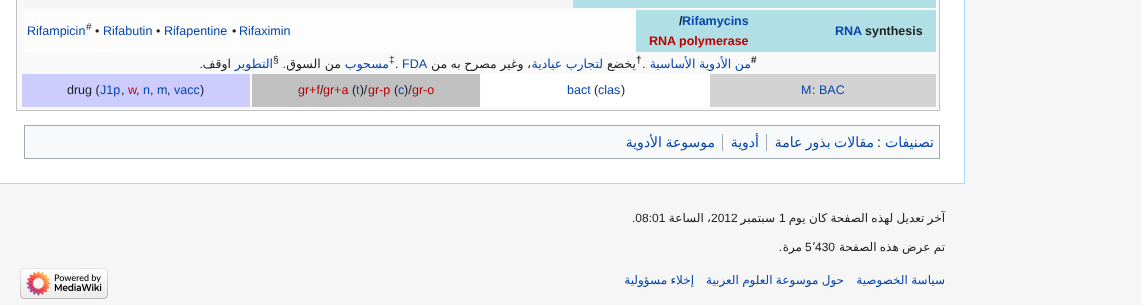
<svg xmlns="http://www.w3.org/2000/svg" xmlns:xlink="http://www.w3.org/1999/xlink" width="1141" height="305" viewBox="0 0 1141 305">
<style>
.cls-1{font:bold 12.5px Liberation Sans;fill:#202122}
.cls-2{font:bold 12.5px Liberation Sans;fill:#0645ad}
.cls-3{font:bold 12.5px Liberation Sans;fill:#ba0000}
.cls-4{font:12.5px Liberation Sans;fill:#0645ad}
.cls-5{font:12.5px Liberation Sans;fill:#202122}
.cls-6{font:10px Liberation Sans;fill:#202122}
.cls-7{font:bold 10px Liberation Sans;fill:#202122}
.cls-8{font:12.5px DejaVu Sans;direction:rtl;fill:#0645ad}
.cls-9{font:12.5px DejaVu Sans;direction:rtl;fill:#202122}
.cls-10{font:12.5px Liberation Sans;direction:rtl;fill:#202122}
.cls-11{font:12.5px Liberation Sans;fill:#ba0000}
.cls-12{font:14px DejaVu Sans;direction:rtl;fill:#0645ad}
.cls-13{font:14px Liberation Sans;fill:#202122}
.cls-14{font:12px DejaVu Sans;direction:rtl;fill:#202122}
.cls-15{font:12px Liberation Sans;fill:#202122}
.cls-16{font:12px DejaVu Sans;fill:#202122}
.cls-17{font:12px Liberation Sans;direction:rtl;fill:#202122}
.cls-18{font:12px DejaVu Sans;direction:rtl;fill:#0645ad}
</style>
<rect width="100%" height="100%" fill="#f6f6f6"/>
<rect fill="#ffffff" x="0" y="0" width="964" height="183"/>
<rect fill="#a7d7f9" x="964" y="0" width="1" height="184"/>
<rect fill="#a7d7f9" x="0" y="183" width="965" height="1"/>
<rect fill="#f9f9f9" stroke="#c0c0c0" x="16.5" y="-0.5" width="923" height="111"/>
<rect fill="#b0e0e6" x="573" y="0" width="363" height="8"/>
<rect fill="#f5f5f5" x="22" y="0" width="551" height="8"/>
<rect fill="#f9f9f9" x="22" y="0" width="2" height="8"/>
<rect fill="#b0e0e6" x="636" y="10" width="300" height="42"/>
<rect fill="#fdfdfd" x="24" y="10" width="612" height="42"/>
<rect fill="#d3d3d3" x="710" y="74" width="226" height="33"/>
<rect fill="#ffffff" x="482" y="74" width="228" height="33"/>
<rect fill="#fdfdfd" x="480" y="74" width="2" height="33"/>
<rect fill="#c0c0c0" x="252" y="74" width="228" height="33"/>
<rect fill="#fdfdfd" x="250" y="74" width="2" height="33"/>
<rect fill="#ccccff" x="22" y="74" width="228" height="33"/>
<rect fill="#fdfdfd" x="20" y="74" width="2" height="33"/>
<rect fill="#f8f9fa" stroke="#a2a9b1" x="24.5" y="125.5" width="915" height="33"/>
<rect fill="#a2a9b1" x="766" y="134" width="1" height="17"/>
<rect fill="#a2a9b1" x="722" y="134" width="1" height="17"/>
<image xlink:href="image0.png" x="20" y="268" width="88" height="31"/>
<text class="cls-1" x="865" y="35">synthesis</text>
<text class="cls-2" x="835" y="35">RNA</text>
<text class="cls-2" x="682" y="25">Rifamycins</text>
<text class="cls-1" x="679" y="25">/</text>
<text class="cls-3" x="649" y="45">RNA polymerase</text>
<text class="cls-4" x="239" y="35">Rifaximin</text>
<text class="cls-5" x="232" y="35">•</text>
<text class="cls-4" x="164" y="35">Rifapentine</text>
<text class="cls-5" x="156" y="35">•</text>
<text class="cls-4" x="103" y="35">Rifabutin</text>
<text class="cls-5" x="95" y="35">•</text>
<text class="cls-4" x="27" y="35">Rifampicin</text>
<text class="cls-6" x="86" y="30">#</text>
<text class="cls-7" x="751" y="63">#</text>
<text class="cls-8" x="751" y="68" word-spacing="-0.5">من الأدوية الأساسية</text>
<text class="cls-5" x="642" y="68">.</text>
<text class="cls-7" x="636" y="63">†</text>
<text class="cls-9" x="636" y="68">يخضع</text>
<text class="cls-8" x="603" y="68" word-spacing="-0.5">لتجارب عيادية</text>
<text class="cls-9" x="531" y="68" word-spacing="-0.5">، وغير مصرح به من</text>
<text class="cls-4" x="402" y="68">FDA</text>
<text class="cls-5" x="395" y="68">.</text>
<text class="cls-6" x="389" y="63">‡</text>
<text class="cls-8" x="389" y="68">مسحوب</text>
<text class="cls-9" x="341" y="68">من السوق</text>
<text class="cls-10" x="286" y="68">.</text>
<text class="cls-6" x="273" y="63">§</text>
<text class="cls-8" x="273" y="68">التطوير</text>
<text class="cls-9" x="231" y="68">اوقف</text>
<text class="cls-10" x="203" y="68">.</text>
<text class="cls-4" x="819" y="94">BAC</text>
<text class="cls-5" x="812" y="94">:</text>
<text class="cls-4" x="801" y="94">M</text>
<text class="cls-5" x="594" y="94">(</text>
<text class="cls-4" x="598" y="94">clas</text>
<text class="cls-5" x="621" y="94">)</text>
<text class="cls-4" x="567" y="94">bact</text>
<text class="cls-5" x="404" y="94">)/</text>
<text class="cls-5" x="394" y="94">(</text>
<text class="cls-5" x="352" y="94">( )/</text>
<text class="cls-11" x="298" y="94">gr+f</text>
<text class="cls-5" x="320" y="94">/</text>
<text class="cls-11" x="412" y="94">gr-o</text>
<text class="cls-4" x="398" y="94">c</text>
<text class="cls-11" x="368" y="94">gr-p</text>
<text class="cls-4" x="356" y="94">t</text>
<text class="cls-11" x="323" y="94">gr+a</text>
<text class="cls-4" x="174" y="94">vacc</text>
<text class="cls-5" x="200" y="94">)</text>
<text class="cls-5" x="167" y="94">,</text>
<text class="cls-4" x="157" y="94">m</text>
<text class="cls-5" x="150" y="94">,</text>
<text class="cls-4" x="143" y="94">n</text>
<text class="cls-5" x="136" y="94">,</text>
<text class="cls-11" x="128" y="94">w</text>
<text class="cls-5" x="121" y="94">,</text>
<text class="cls-5" x="67" y="94">drug (</text>
<text class="cls-4" x="100" y="94">J1p</text>
<text class="cls-12" x="934" y="147">تصنيفات</text>
<text class="cls-13" x="877" y="147">:</text>
<text class="cls-12" x="874" y="147" word-spacing="-1">مقالات بذور عامة</text>
<text class="cls-12" x="759" y="147">أدوية</text>
<text class="cls-12" x="715" y="147" word-spacing="-1">موسوعة الأدوية</text>
<text class="cls-14" x="945" y="222" word-spacing="-0.5">آخر تعديل لهذه الصفحة كان يوم</text>
<text class="cls-15" x="779" y="222">1</text>
<text class="cls-14" x="775" y="222">سبتمبر</text>
<text class="cls-15" x="711" y="222">2012</text>
<text class="cls-14" x="711" y="222" word-spacing="-0.5">، الساعة</text>
<text class="cls-15" x="632" y="222">.08:01</text>
<text class="cls-14" x="945" y="251" word-spacing="-0.5">تم عرض هذه الصفحة</text>
<text class="cls-15" x="815" y="251">430</text>
<text class="cls-16" x="812" y="251">٬</text>
<text class="cls-15" x="805" y="251">5</text>
<text class="cls-14" x="802" y="251">مرة</text>
<text class="cls-17" x="782" y="251">.</text>
<text class="cls-18" x="945" y="284" word-spacing="-0.5">سياسة الخصوصية</text>
<text class="cls-18" x="844" y="284" word-spacing="-0.5">حول موسوعة العلوم العربية</text>
<text class="cls-18" x="694" y="284" word-spacing="-0.5">إخلاء مسؤولية</text>
</svg>
